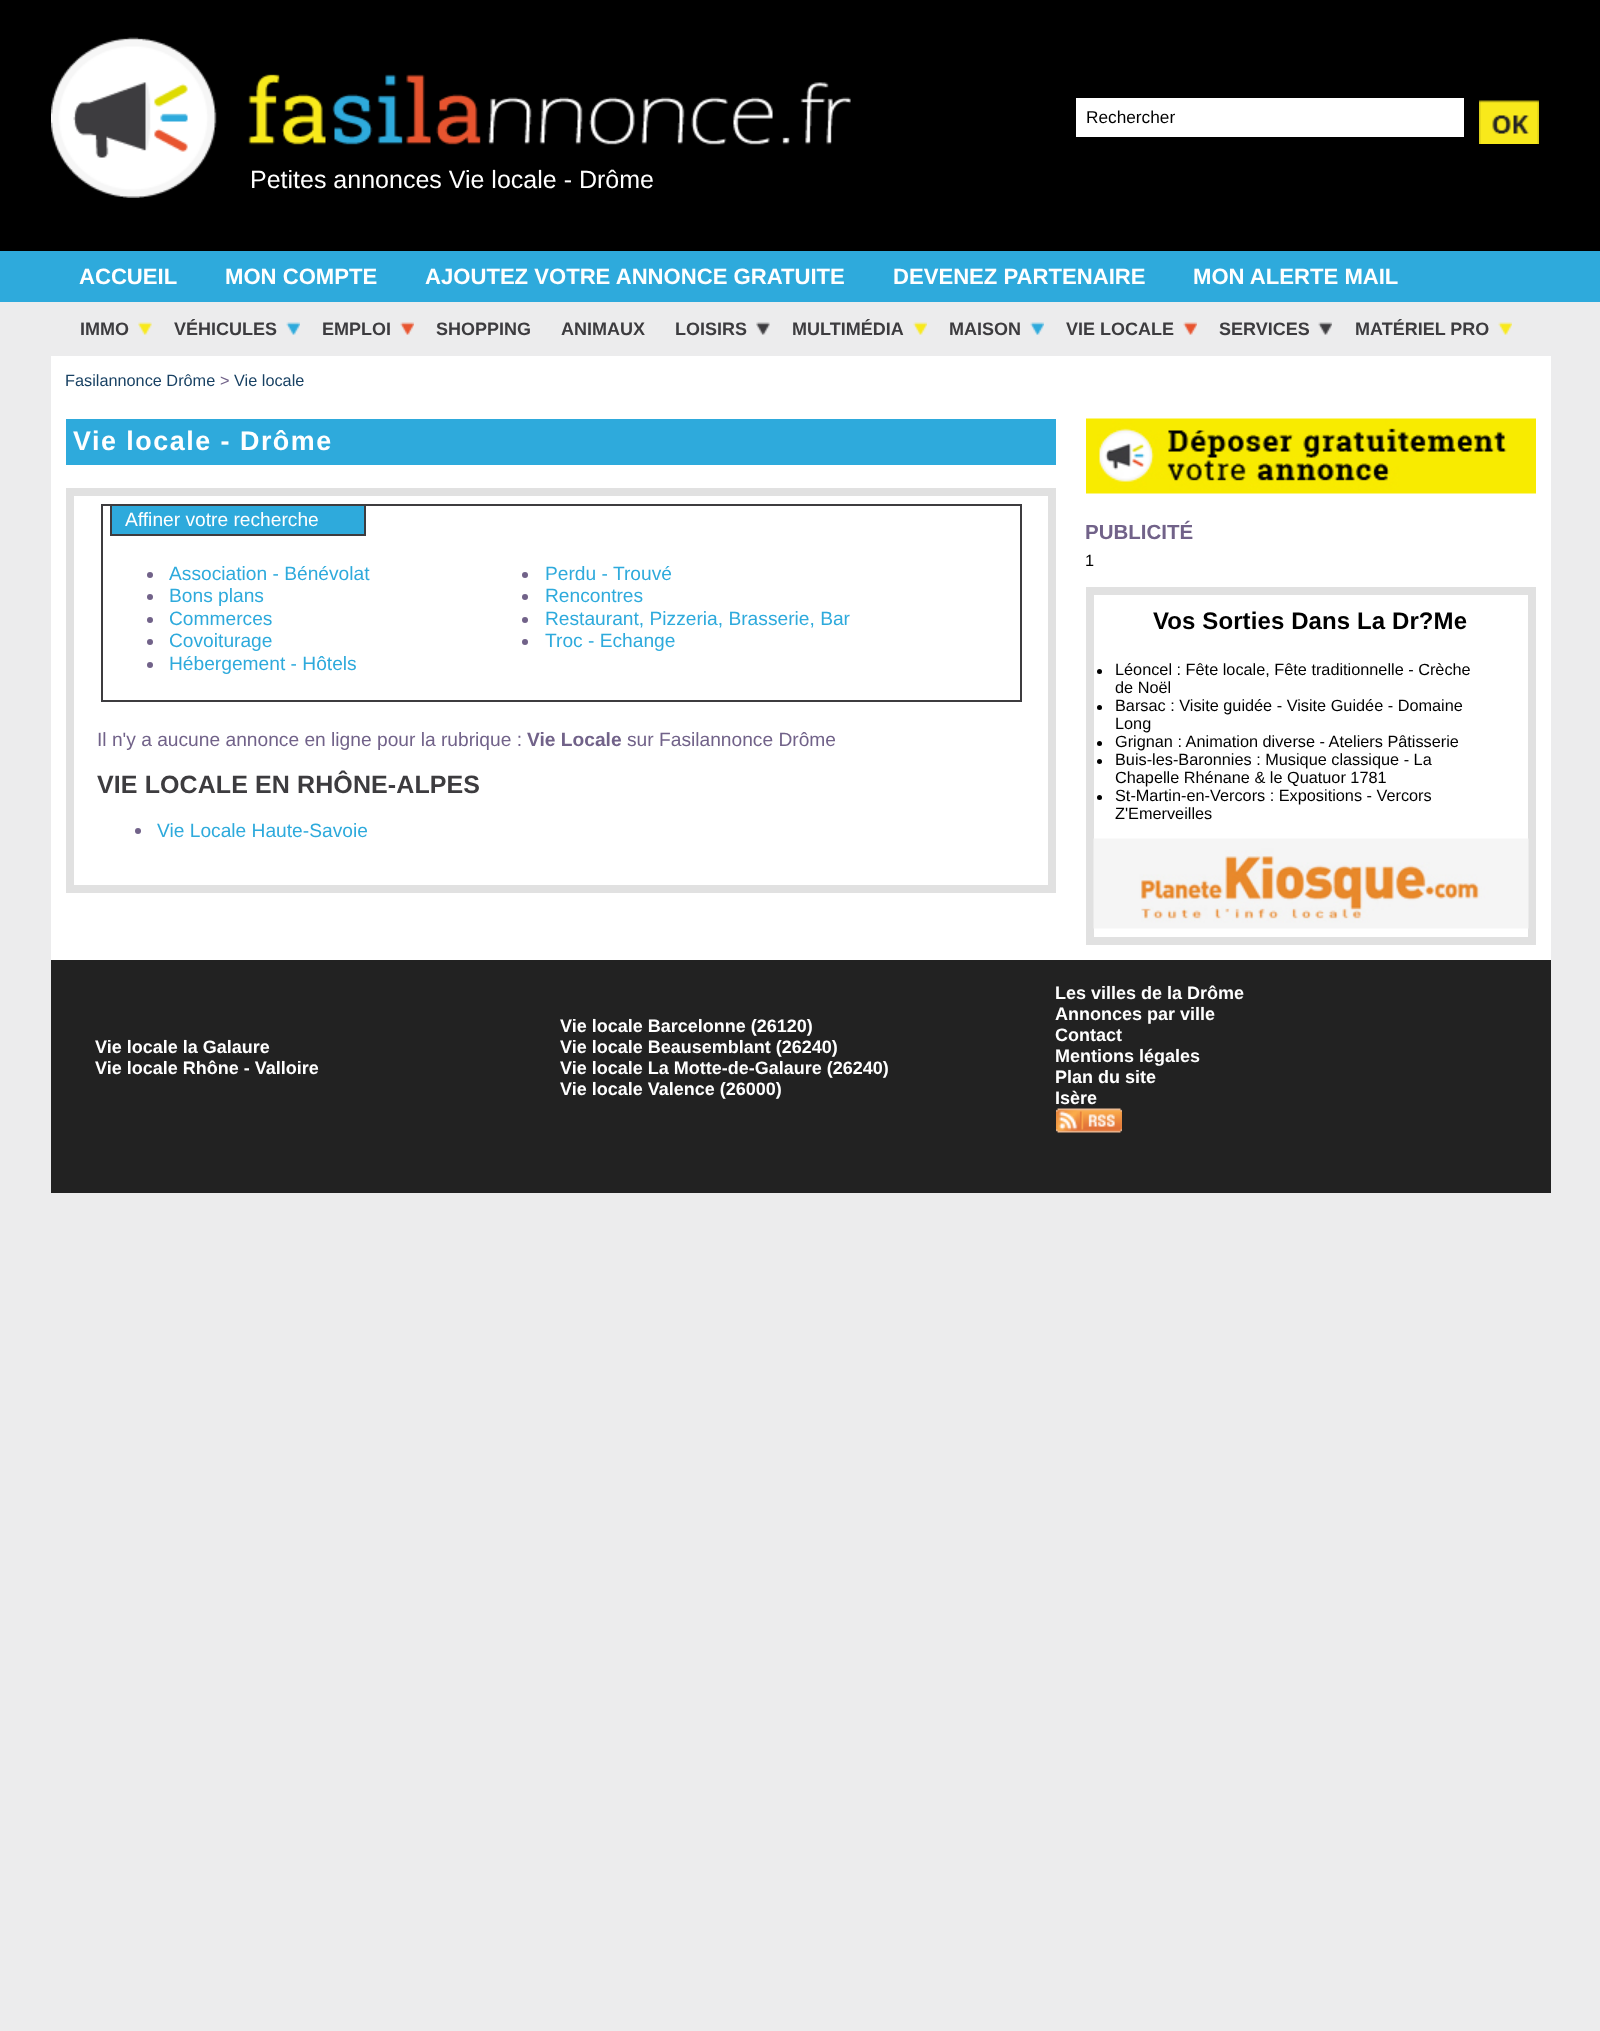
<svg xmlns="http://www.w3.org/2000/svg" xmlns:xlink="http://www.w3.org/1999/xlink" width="1600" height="2031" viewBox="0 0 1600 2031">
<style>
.cls-1{font:17.25px Liberation Sans;fill:#000000}
.cls-2{font:25px Liberation Sans;fill:#ffffff}
.cls-3{font:bold 22.1px Liberation Sans;fill:#ffffff}
.cls-4{font:bold 18px Liberation Sans;fill:#3d3c3f}
.cls-5{font:16.3px Liberation Sans;fill:#184163}
.cls-6{font:16.3px Liberation Sans;fill:#716289}
.cls-7{font:bold 26.9px Liberation Sans;letter-spacing:1.5px;fill:#ffffff}
.cls-8{font:19.2px Liberation Sans;fill:#ffffff}
.cls-9{font:19.2px Liberation Sans;fill:#2eaadc}
.cls-10{font:19.2px Liberation Sans;fill:#716289}
.cls-11{font:bold 19.2px Liberation Sans;fill:#716289}
.cls-12{font:bold 25px Liberation Sans;letter-spacing:0.1px;fill:#3d3c3f}
.cls-13{font:bold 20.5px Liberation Sans;fill:#716289}
.cls-14{font:16.3px Liberation Sans;fill:#000000}
.cls-15{font:bold 24px Liberation Sans;letter-spacing:0.1px;fill:#000000}
.cls-16{font:bold 18px Liberation Sans;fill:#ffffff}
</style>
<rect width="100%" height="100%" fill="#ececed"/>
<rect fill="#000000" x="0" y="0" width="1600" height="251"/>
<rect fill="#ffffff" x="51" y="356" width="1500" height="604"/>
<image xlink:href="image0.png" x="51" y="37" width="800" height="161"/>
<rect fill="#ffffff" x="1076" y="98" width="388" height="39"/>
<image xlink:href="image1.png" x="1479" y="100" width="60" height="44"/>
<image xlink:href="image2.png" x="138" y="322" width="14" height="13"/>
<image xlink:href="image3.png" x="286" y="322" width="14" height="13"/>
<image xlink:href="image4.png" x="400" y="322" width="14" height="13"/>
<image xlink:href="image5.png" x="756" y="322" width="14" height="13"/>
<image xlink:href="image6.png" x="913" y="322" width="14" height="13"/>
<image xlink:href="image7.png" x="1030" y="322" width="14" height="13"/>
<image xlink:href="image4.png" x="1183" y="322" width="14" height="13"/>
<image xlink:href="image8.png" x="1318" y="322" width="14" height="13"/>
<image xlink:href="image9.png" x="1498" y="322" width="14" height="13"/>
<rect fill="#2eaadc" x="66" y="419" width="990" height="46"/>
<rect fill="none" stroke="#e1e1e1" stroke-width="8" x="70" y="492" width="982" height="397"/>
<rect fill="none" stroke="#3d3c3f" stroke-width="2" x="102" y="505" width="919" height="196"/>
<rect fill="#2eaadc" stroke="#3d3c3f" stroke-width="2" x="111" y="505" width="254" height="30"/>
<circle fill="#716289" cx="150" cy="575" r="3"/>
<circle fill="#716289" cx="150" cy="597" r="3"/>
<circle fill="#716289" cx="150" cy="620" r="3"/>
<circle fill="#716289" cx="150" cy="642" r="3"/>
<circle fill="#716289" cx="150" cy="665" r="3"/>
<circle fill="#716289" cx="525" cy="575" r="3"/>
<circle fill="#716289" cx="525" cy="597" r="3"/>
<circle fill="#716289" cx="525" cy="620" r="3"/>
<circle fill="#716289" cx="525" cy="642" r="3"/>
<circle fill="#716289" cx="138" cy="831" r="3"/>
<image xlink:href="image10.png" x="1086" y="418" width="450" height="76"/>
<rect fill="none" stroke="#e1e1e1" stroke-width="8" x="1090" y="591" width="442" height="350"/>
<circle fill="#000000" cx="1099.5" cy="671.5" r="2.5"/>
<circle fill="#000000" cx="1099.5" cy="707.5" r="2.5"/>
<circle fill="#000000" cx="1099.5" cy="743.5" r="2.5"/>
<circle fill="#000000" cx="1099.5" cy="761.5" r="2.5"/>
<circle fill="#000000" cx="1099.5" cy="797.5" r="2.5"/>
<image xlink:href="image11.png" x="1093" y="838" width="436" height="91"/>
<rect fill="#222222" x="51" y="960" width="1500" height="233"/>
<image xlink:href="image12.png" x="1056" y="1108" width="66" height="25"/>
<rect fill="#2eaadc" x="0" y="251" width="1600" height="51"/>
<text class="cls-1" x="1086" y="123">Rechercher</text>
<text class="cls-2" x="250" y="188">Petites annonces Vie locale - Drôme</text>
<text class="cls-3" x="79" y="284">ACCUEIL</text>
<text class="cls-3" x="225" y="284">MON COMPTE</text>
<text class="cls-3" x="425" y="284">AJOUTEZ VOTRE ANNONCE GRATUITE</text>
<text class="cls-3" x="893" y="284">DEVENEZ PARTENAIRE</text>
<text class="cls-3" x="1193" y="284">MON ALERTE MAIL</text>
<text class="cls-4" x="80" y="335">IMMO</text>
<text class="cls-4" x="174" y="335">VÉHICULES</text>
<text class="cls-4" x="322" y="335">EMPLOI</text>
<text class="cls-4" x="436" y="335">SHOPPING</text>
<text class="cls-4" x="561" y="335">ANIMAUX</text>
<text class="cls-4" x="675" y="335">LOISIRS</text>
<text class="cls-4" x="792" y="335">MULTIMÉDIA</text>
<text class="cls-4" x="949" y="335">MAISON</text>
<text class="cls-4" x="1066" y="335">VIE LOCALE</text>
<text class="cls-4" x="1219" y="335">SERVICES</text>
<text class="cls-4" x="1355" y="335">MATÉRIEL PRO</text>
<text class="cls-5" x="65" y="386">Fasilannonce Drôme</text>
<text class="cls-6" x="220" y="386">&gt;</text>
<text class="cls-5" x="234" y="386">Vie locale</text>
<text class="cls-7" x="73" y="450">Vie locale - Drôme</text>
<text class="cls-8" x="125" y="526">Affiner votre recherche</text>
<text class="cls-9"><tspan x="169" y="580">Association - Bénévolat</tspan><tspan x="169" y="602">Bons plans</tspan><tspan x="169" y="625">Commerces</tspan><tspan x="169" y="647">Covoiturage</tspan><tspan x="169" y="670">Hébergement - Hôtels</tspan></text>
<text class="cls-9"><tspan x="545" y="580">Perdu - Trouvé</tspan><tspan x="545" y="602">Rencontres</tspan><tspan x="545" y="625">Restaurant, Pizzeria, Brasserie, Bar</tspan><tspan x="545" y="647">Troc - Echange</tspan></text>
<text class="cls-10" x="97" y="746">Il n'y a aucune annonce en ligne pour la rubrique :</text>
<text class="cls-11" x="527" y="746">Vie Locale</text>
<text class="cls-10" x="627" y="746">sur Fasilannonce Drôme</text>
<text class="cls-12" x="97" y="793">VIE LOCALE EN RHÔNE-ALPES</text>
<text class="cls-9" x="157" y="837">Vie Locale Haute-Savoie</text>
<text class="cls-13" x="1085" y="539">PUBLICITÉ</text>
<text class="cls-14" x="1085" y="566">1</text>
<text class="cls-15" x="1153" y="629">Vos Sorties Dans La Dr?Me</text>
<text class="cls-14"><tspan x="1115" y="675">Léoncel : Fête locale, Fête traditionnelle - Crèche</tspan><tspan x="1115" y="693">de Noël</tspan><tspan x="1115" y="711">Barsac : Visite guidée - Visite Guidée - Domaine</tspan><tspan x="1115" y="729">Long</tspan><tspan x="1115" y="747">Grignan : Animation diverse - Ateliers Pâtisserie</tspan><tspan x="1115" y="765">Buis-les-Baronnies : Musique classique - La</tspan><tspan x="1115" y="783">Chapelle Rhénane &amp; le Quatuor 1781</tspan><tspan x="1115" y="801">St-Martin-en-Vercors : Expositions - Vercors</tspan><tspan x="1115" y="819">Z'Emerveilles</tspan></text>
<text class="cls-16"><tspan x="95" y="1053">Vie locale la Galaure</tspan><tspan x="95" y="1074">Vie locale Rhône - Valloire</tspan></text>
<text class="cls-16"><tspan x="560" y="1032">Vie locale Barcelonne (26120)</tspan><tspan x="560" y="1053">Vie locale Beausemblant (26240)</tspan><tspan x="560" y="1074">Vie locale La Motte-de-Galaure (26240)</tspan><tspan x="560" y="1095">Vie locale Valence (26000)</tspan></text>
<text class="cls-16"><tspan x="1055" y="999">Les villes de la Drôme</tspan><tspan x="1055" y="1020">Annonces par ville</tspan><tspan x="1055" y="1041">Contact</tspan><tspan x="1055" y="1062">Mentions légales</tspan><tspan x="1055" y="1083">Plan du site</tspan><tspan x="1055" y="1104">Isère</tspan></text>
</svg>
